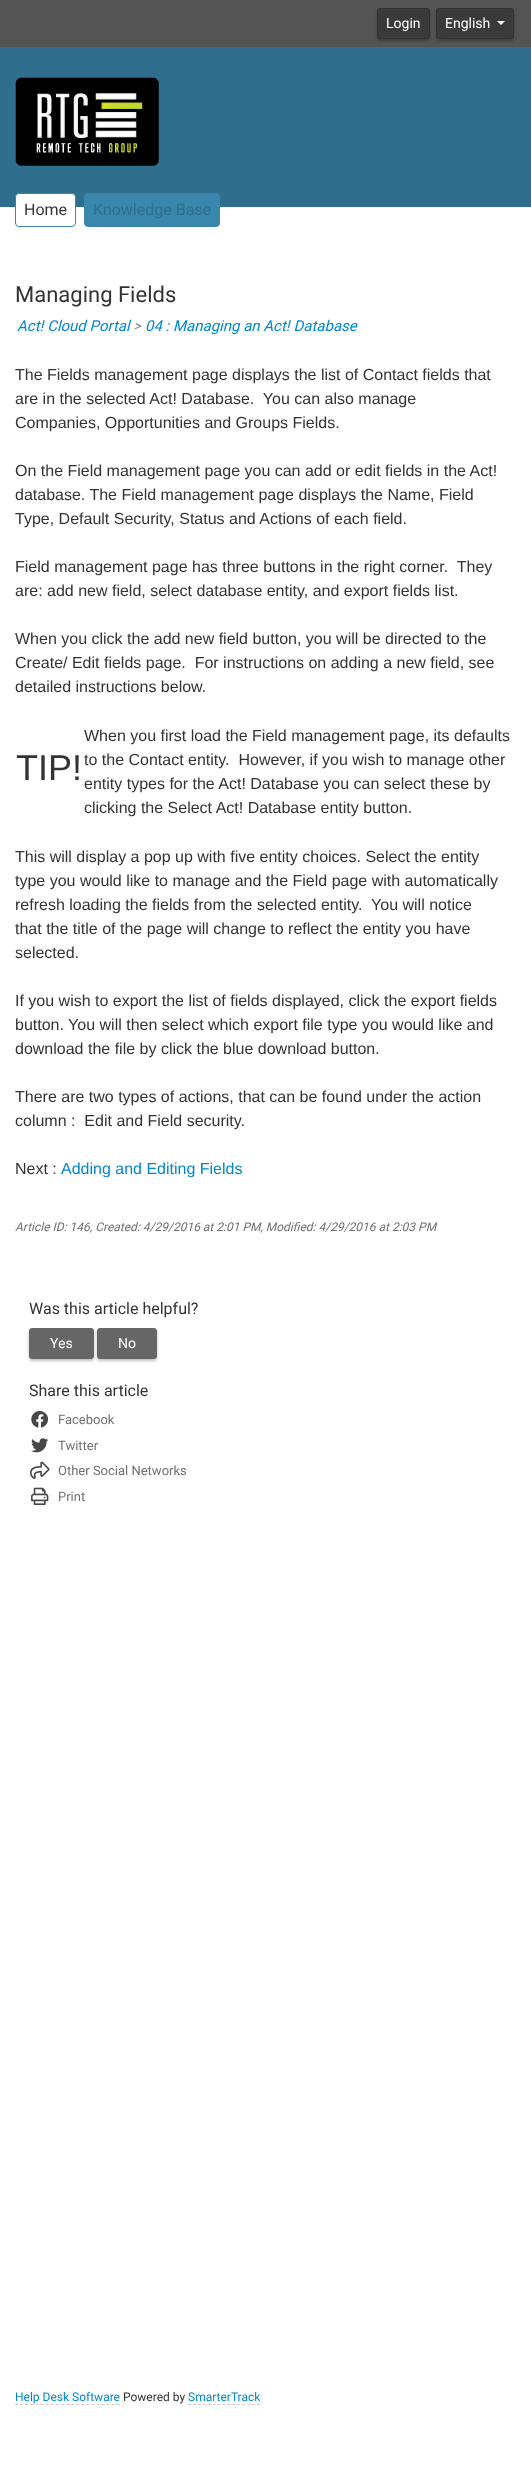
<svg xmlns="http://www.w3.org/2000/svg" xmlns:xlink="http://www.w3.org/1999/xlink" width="531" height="2483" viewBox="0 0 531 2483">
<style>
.cls-1{font:14px Roboto;fill:#ffffff}
.cls-2{font:16px Roboto;fill:#333333}
.cls-3{font:16px Roboto;fill:#2f6e8d}
.cls-4{font:22px Roboto;fill:#333333}
.cls-5{font:italic 15px Roboto;fill:#0088cc}
.cls-6{font:italic 15px Roboto;fill:#888888}
.cls-7{font:16px Liberation Sans;fill:#333333}
.cls-8{font:36px Liberation Sans;fill:#333333}
.cls-9{font:16px Liberation Sans;fill:#0088cc}
.cls-10{font:italic 12px Roboto;fill:#707070}
.cls-11{font:13px Roboto;fill:#707070}
.cls-12{font:12px Roboto;fill:#0088cc}
.cls-13{font:12px Roboto;fill:#333333}
</style>
<rect width="100%" height="100%" fill="#ffffff"/>
<rect fill="#545454" x="0" y="0" width="531" height="47"/>
<rect fill="#000000" fill-opacity="0.25" filter="blur(1.5px)" x="377" y="10" width="53" height="31" rx="3"/>
<rect fill="#3a3a3a" stroke="#323232" x="377.5" y="8.5" width="52" height="30" rx="2.5"/>
<rect fill="#000000" fill-opacity="0.25" filter="blur(1.5px)" x="436" y="10" width="78" height="31" rx="3"/>
<rect fill="#3a3a3a" stroke="#323232" x="436.5" y="8.5" width="77" height="30" rx="2.5"/>
<path fill="#ffffff" d="M497 21H505L501 25Z"/>
<rect fill="#2f6e8d" x="0" y="47" width="531" height="160"/>
<image xlink:href="image0.png" x="15" y="77" width="144" height="89"/>
<rect fill="#ffffff" stroke="#3a87ad" x="15.5" y="193.5" width="60" height="33" rx="3.5"/>
<rect fill="#3a87ad" stroke="#3a87ad" x="84.5" y="193.5" width="135" height="33" rx="3.5"/>
<rect fill="#000000" fill-opacity="0.25" filter="blur(1.5px)" x="29" y="1330" width="65" height="31" rx="3"/>
<rect fill="#666666" stroke="#666666" x="29.5" y="1328.5" width="64" height="30" rx="2.5"/>
<rect fill="#000000" fill-opacity="0.25" filter="blur(1.5px)" x="97" y="1330" width="60" height="31" rx="3"/>
<rect fill="#666666" stroke="#666666" x="97.5" y="1328.5" width="59" height="30" rx="2.5"/>
<image xlink:href="image1.png" x="31" y="1410" width="18" height="18"/>
<image xlink:href="image2.png" x="31" y="1438" width="18" height="15"/>
<image xlink:href="image3.png" x="30" y="1461" width="20" height="18"/>
<image xlink:href="image4.png" x="31" y="1487" width="18" height="18"/>
<path fill="none" stroke="#cccccc" stroke-dasharray="3 2.1" d="M15 2404.5H120"/>
<path fill="none" stroke="#cccccc" stroke-dasharray="3 1.93" d="M188 2404.5H260"/>
<text class="cls-1" x="386" y="28">Login</text>
<text class="cls-1" x="445" y="28">English</text>
<text class="cls-2" x="24" y="215">Home</text>
<text class="cls-3" x="93" y="215">Knowledge Base</text>
<text class="cls-4" x="15" y="302">Managing Fields</text>
<text class="cls-5" x="17" y="331">Act! Cloud Portal</text>
<text class="cls-6" x="133" y="331">&gt;</text>
<text class="cls-5" x="145" y="331">04 : Managing an Act! Database</text>
<text class="cls-7" xml:space="preserve"><tspan x="15" y="380">The Fields management page displays the list of Contact fields that</tspan><tspan x="15" y="404">are in the selected Act! Database.  You can also manage</tspan><tspan x="15" y="428">Companies, Opportunities and Groups Fields.</tspan></text>
<text class="cls-7"><tspan x="15" y="476">On the Field management page you can add or edit fields in the Act!</tspan><tspan x="15" y="500">database. The Field management page displays the Name, Field</tspan><tspan x="15" y="524">Type, Default Security, Status and Actions of each field.</tspan></text>
<text class="cls-7" xml:space="preserve"><tspan x="15" y="572">Field management page has three buttons in the right corner.  They</tspan><tspan x="15" y="596">are: add new field, select database entity, and export fields list.</tspan></text>
<text class="cls-7" xml:space="preserve"><tspan x="15" y="644">When you click the add new field button, you will be directed to the</tspan><tspan x="15" y="668">Create/ Edit fields page.  For instructions on adding a new field, see</tspan><tspan x="15" y="692">detailed instructions below.</tspan></text>
<text class="cls-8" x="16" y="780">TIP!</text>
<text class="cls-7" xml:space="preserve"><tspan x="84" y="741">When you first load the Field management page, its defaults</tspan><tspan x="84" y="765">to the Contact entity.  However, if you wish to manage other</tspan><tspan x="84" y="789">entity types for the Act! Database you can select these by</tspan><tspan x="84" y="813">clicking the Select Act! Database entity button.</tspan></text>
<text class="cls-7" xml:space="preserve"><tspan x="15" y="862">This will display a pop up with five entity choices. Select the entity</tspan><tspan x="15" y="886">type you would like to manage and the Field page with automatically</tspan><tspan x="15" y="910">refresh loading the fields from the selected entity.  You will notice</tspan><tspan x="15" y="934">that the title of the page will change to reflect the entity you have</tspan><tspan x="15" y="958">selected.</tspan></text>
<text class="cls-7"><tspan x="15" y="1006">If you wish to export the list of fields displayed, click the export fields</tspan><tspan x="15" y="1030">button. You will then select which export file type you would like and</tspan><tspan x="15" y="1054">download the file by click the blue download button.</tspan></text>
<text class="cls-7" xml:space="preserve"><tspan x="15" y="1102">There are two types of actions, that can be found under the action</tspan><tspan x="15" y="1126">column :  Edit and Field security.</tspan></text>
<text class="cls-7" x="15" y="1174">Next :</text>
<text class="cls-9" x="61" y="1174">Adding and Editing Fields</text>
<text class="cls-10" x="15" y="1231">Article ID: 146, Created: 4/29/2016 at 2:01 PM, Modified: 4/29/2016 at 2:03 PM</text>
<text class="cls-2" x="29" y="1314">Was this article helpful?</text>
<text class="cls-1" x="50" y="1348">Yes</text>
<text class="cls-1" x="118" y="1348">No</text>
<text class="cls-2" x="29" y="1396">Share this article</text>
<text class="cls-11" x="58" y="1424">Facebook</text>
<text class="cls-11"><tspan x="58" y="1450">Twitter</tspan><tspan x="58" y="1475">Other Social Networks</tspan></text>
<text class="cls-11" x="58" y="1501">Print</text>
<text class="cls-12" x="15" y="2401">Help Desk Software</text>
<text class="cls-13" x="123" y="2401">Powered by</text>
<text class="cls-12" x="188" y="2401">SmarterTrack</text>
</svg>
